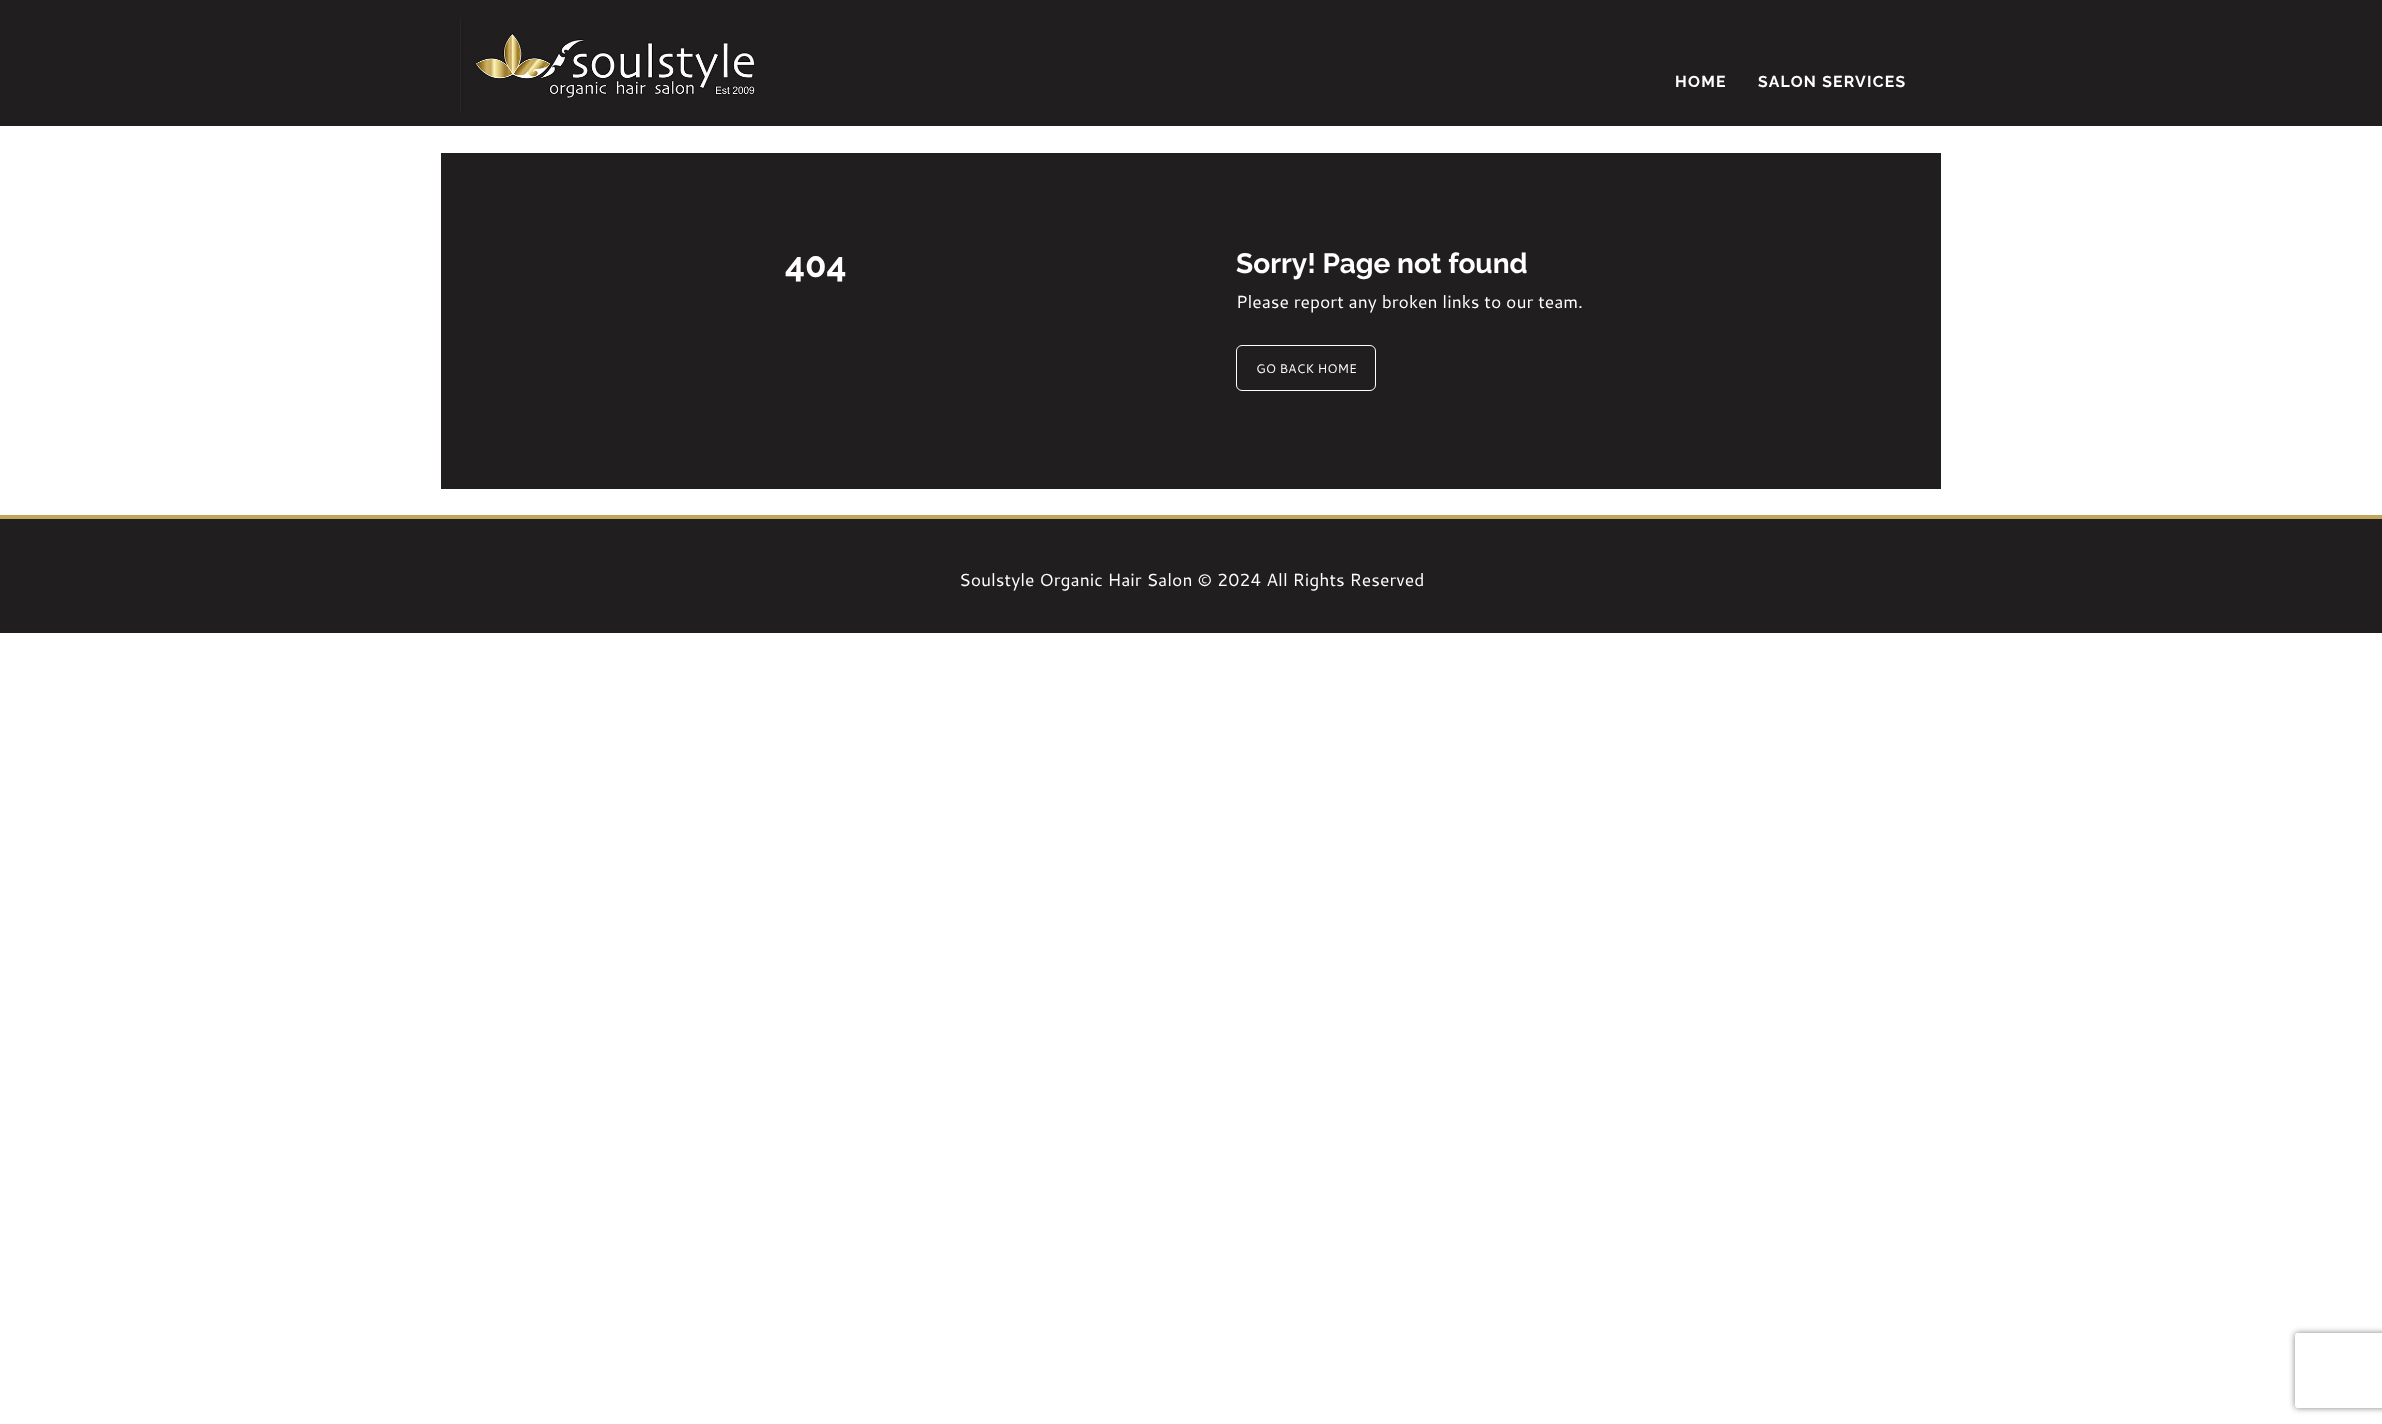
<svg xmlns="http://www.w3.org/2000/svg" xmlns:xlink="http://www.w3.org/1999/xlink" width="2382" height="1424" viewBox="0 0 2382 1424">
<style>
.cls-1{font:bold 15.75px Raleway;letter-spacing:1.25px;fill:#ffffff}
.cls-2{font:bold 35px Raleway;fill:#ffffff}
.cls-3{font:bold 28px Raleway;fill:#ffffff}
.cls-4{font:17.5px Cantarell;fill:#ffffff}
.cls-5{font:12.5px Cantarell;fill:#ffffff}
</style>
<defs>
<clipPath id="clip1"><path d="M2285 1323H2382V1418H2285ZM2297.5 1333H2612.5C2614 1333 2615 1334 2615 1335.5V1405.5C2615 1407 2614 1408 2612.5 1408H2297.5C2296 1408 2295 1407 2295 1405.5V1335.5C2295 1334 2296 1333 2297.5 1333Z" clip-rule="evenodd"/></clipPath>
</defs>
<rect width="100%" height="100%" fill="#ffffff"/>
<rect fill="#201e1f" x="0" y="0" width="2382" height="126"/>
<image xlink:href="image0.png" x="460" y="19" width="295" height="94"/>
<rect fill="#201e1f" x="441" y="153" width="1500" height="336"/>
<rect fill="none" stroke="#ffffff" x="1236.5" y="345.5" width="139" height="45" rx="5.5"/>
<rect fill="#201e1f" x="0" y="519" width="2382" height="114"/>
<rect fill="#c1a659" x="0" y="515" width="2382" height="4"/>
<g clip-path="url(#clip1)">
<rect fill="#808080" filter="blur(3px)" x="2295" y="1333" width="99" height="75" rx="2.5"/>
</g>
<text class="cls-1" x="1675" y="87">HOME</text>
<text class="cls-1" x="1758" y="87">SALON SERVICES</text>
<text class="cls-2" x="785" y="277">404</text>
<text class="cls-3" x="1236" y="273">Sorry! Page not found</text>
<text class="cls-4" x="1236" y="308">Please report any broken links to our team.</text>
<text class="cls-5" x="1256" y="373">GO BACK HOME</text>
<text class="cls-4" x="959" y="586">Soulstyle Organic Hair Salon © 2024 All Rights Reserved</text>
</svg>
